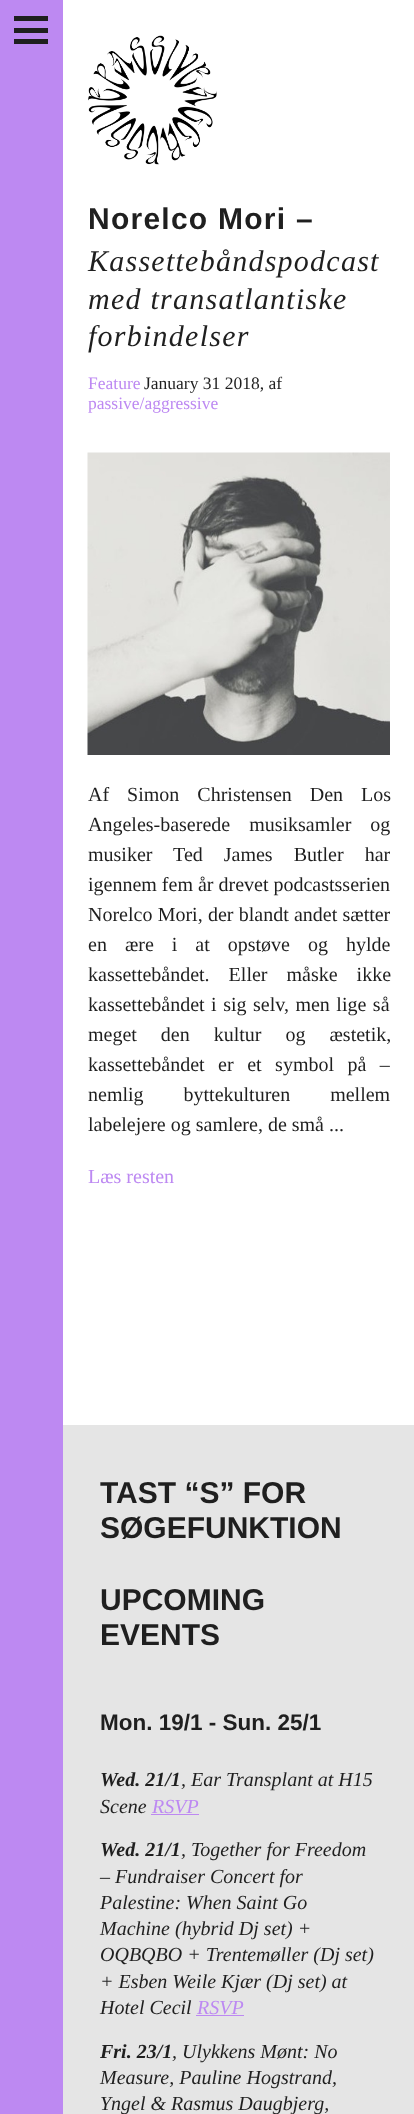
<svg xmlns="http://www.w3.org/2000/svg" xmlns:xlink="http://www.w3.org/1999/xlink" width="414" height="2114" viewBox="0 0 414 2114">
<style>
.cls-1{font:bold 30px Liberation Sans;letter-spacing:1.25px;fill:#1f1f1f}
.cls-2{font:italic 30px Liberation Serif;letter-spacing:1.25px;fill:#1f1f1f}
.cls-3{font:17.5px Liberation Serif;fill:#bd89f2}
.cls-4{font:17.5px Liberation Serif;fill:#1f1f1f}
.cls-5{font:20px Liberation Serif;fill:#1f1f1f}
.cls-6{font:20px Liberation Serif;fill:#bd89f2}
.cls-7{font:bold 30px Liberation Sans;fill:#1f1f1f}
.cls-8{font:bold 22.5px Liberation Sans;fill:#1f1f1f}
.cls-9{font:italic bold 20px Liberation Serif;fill:#1f1f1f}
.cls-10{font:italic 20px Liberation Serif;fill:#1f1f1f}
.cls-11{font:italic 20px Liberation Serif;fill:#bd89f2}
</style>
<rect width="100%" height="100%" fill="#ffffff"/>
<rect fill="#bd89f2" x="0" y="0" width="63" height="2114"/>
<rect fill="#1f1f1f" x="14" y="28" width="34" height="5"/>
<rect fill="#1f1f1f" x="14" y="16" width="34" height="5"/>
<rect fill="#1f1f1f" x="14" y="39" width="34" height="5"/>
<image xlink:href="image0.png" x="88" y="35" width="129" height="130"/>
<image xlink:href="image1.png" x="87" y="452" width="303" height="303"/>
<rect fill="#e5e5e5" x="63" y="1425" width="351" height="689"/>
<rect fill="#bd89f2" x="151" y="1814" width="48" height="1"/>
<rect fill="#bd89f2" x="196" y="2015" width="48" height="1"/>
<text class="cls-1" x="88" y="229">Norelco Mori –</text>
<text class="cls-2"><tspan x="88" y="271">Kassettebåndspodcast</tspan><tspan x="88" y="309">med transatlantiske</tspan><tspan x="88" y="346">forbindelser</tspan></text>
<text class="cls-3" x="88" y="389">Feature</text>
<text class="cls-4" x="144" y="389">January 31 2018, af</text>
<text class="cls-3" x="88" y="409">passive/aggressive</text>
<text class="cls-5"><tspan x="88" y="801" word-spacing="13">Af Simon Christensen Den Los</tspan><tspan x="88" y="831" word-spacing="14">Angeles-baserede musiksamler og</tspan><tspan x="88" y="861" word-spacing="16">musiker Ted James Butler har</tspan><tspan x="88" y="891">igennem fem år drevet podcastsserien</tspan><tspan x="88" y="921" word-spacing="0.25">Norelco Mori, der blandt andet sætter</tspan><tspan x="88" y="951" word-spacing="13">en ære i at opstøve og hylde</tspan><tspan x="88" y="981" word-spacing="14">kassettebåndet. Eller måske ikke</tspan><tspan x="88" y="1011" word-spacing="1.5">kassettebåndet i sig selv, men lige så</tspan><tspan x="88" y="1041" word-spacing="19">meget den kultur og æstetik,</tspan><tspan x="88" y="1071" word-spacing="8.5">kassettebåndet er et symbol på –</tspan><tspan x="88" y="1101" word-spacing="35">nemlig byttekulturen mellem</tspan><tspan x="88" y="1131">labelejere og samlere, de små ...</tspan></text>
<text class="cls-6" x="88" y="1183">Læs resten</text>
<text class="cls-7"><tspan x="100" y="1503">TAST “S” FOR</tspan><tspan x="100" y="1538">SØGEFUNKTION</tspan></text>
<text class="cls-7"><tspan x="100" y="1610">UPCOMING</tspan><tspan x="100" y="1645">EVENTS</tspan></text>
<text class="cls-8" x="100" y="1730">Mon. 19/1 - Sun. 25/1</text>
<text class="cls-9" x="100" y="1786">Wed. 21/1</text>
<text class="cls-10" x="181" y="1786">, Ear Transplant at H15</text>
<text class="cls-10" x="100" y="1813">Scene</text>
<text class="cls-11" x="152" y="1813">RSVP</text>
<text class="cls-9" x="100" y="1856">Wed. 21/1</text>
<text class="cls-10" x="181" y="1856">, Together for Freedom</text>
<text class="cls-10"><tspan x="100" y="1883">– Fundraiser Concert for</tspan><tspan x="100" y="1909">Palestine: ‍When Saint Go</tspan><tspan x="100" y="1935">Machine (hybrid Dj set) +</tspan><tspan x="100" y="1961">OQBQBO + Trentemøller (Dj set)</tspan><tspan x="100" y="1988">+ Esben Weile Kjær (Dj set) at</tspan><tspan x="100" y="2014">Hotel Cecil</tspan></text>
<text class="cls-11" x="197" y="2014">RSVP</text>
<text class="cls-9" x="100" y="2058">Fri. 23/1</text>
<text class="cls-10" x="172" y="2058">, Ulykkens Mønt: No</text>
<text class="cls-10"><tspan x="100" y="2084">Measure, Pauline Hogstrand,</tspan><tspan x="100" y="2110">Yngel &amp; Rasmus Daugbjerg,</tspan></text>
</svg>
